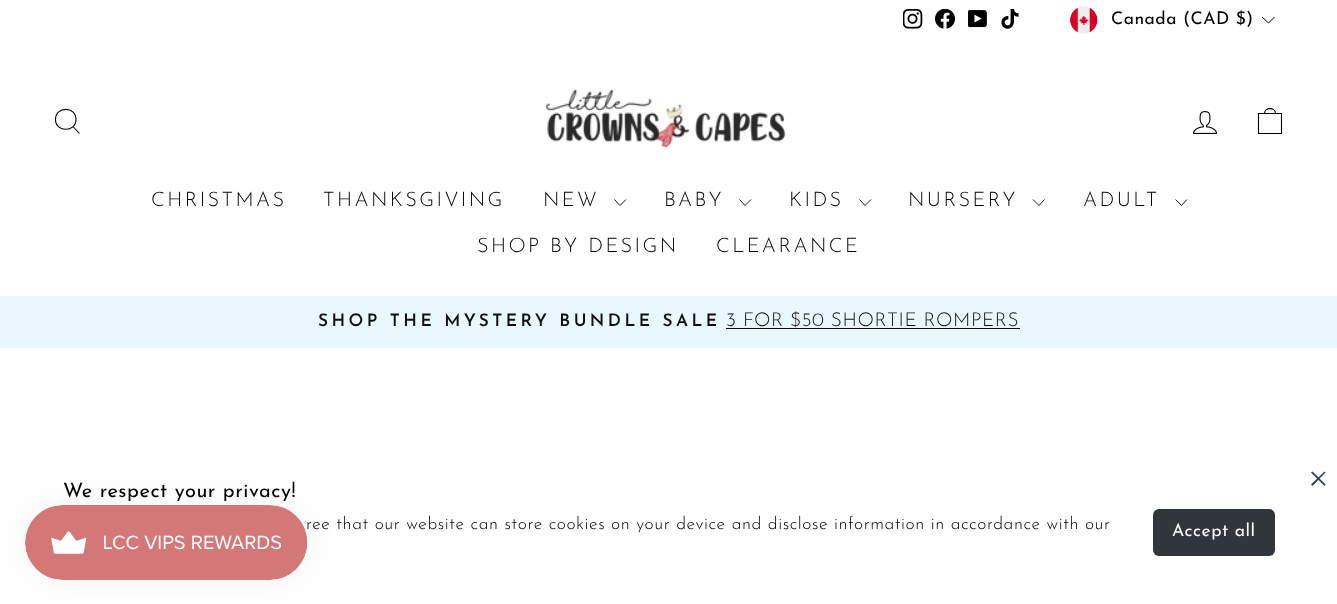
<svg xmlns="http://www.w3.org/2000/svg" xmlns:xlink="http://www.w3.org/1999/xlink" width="1337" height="604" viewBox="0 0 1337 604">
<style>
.cls-1{font:17.5px Josefin Sans;letter-spacing:0.5px;fill:#000000}
.cls-2{font:300 20px Josefin Sans;letter-spacing:2.4px;fill:#000000}
.cls-3{font:600 17.25px Josefin Sans;letter-spacing:3.45px;fill:#0f0f0f}
.cls-4{font:300 19.1px Josefin Sans;letter-spacing:0.56px;fill:#0f0f0f}
.cls-5{font:20px Josefin Sans;letter-spacing:0.56px;fill:#000000}
.cls-6{font:300 17.5px Josefin Sans;letter-spacing:0.56px;fill:#000000}
.cls-7{font:17.5px Josefin Sans;letter-spacing:0.5px;fill:#ffffff}
</style>
<rect width="100%" height="100%" fill="#ffffff"/>
<image xlink:href="image0.png" x="903" y="9" width="20" height="20"/>
<image xlink:href="image1.png" x="935" y="9" width="20" height="20"/>
<image xlink:href="image2.png" x="968" y="10" width="19" height="18"/>
<image xlink:href="image3.png" x="1001" y="9" width="18" height="20"/>
<image xlink:href="image4.png" x="1070" y="6" width="28" height="28"/>
<path fill="none" stroke="#000000" d="M1262 17L1268.5 23L1274.5 17"/>
<path fill="none" stroke="#000000" stroke-width="1.1" d="M76 119.5C76 132.5 55.5 132.5 55.5 119.5C55.5 106 76 106 76 119.5ZM79.5 133.5L73 126.5"/>
<image xlink:href="image5.png" x="545" y="89" width="241" height="59"/>
<image xlink:href="image6.png" x="1193" y="111" width="24" height="23"/>
<path fill="none" stroke="#000000" stroke-width="1.1" d="M1258.5 113.5H1281.5V133.5H1258.5ZM1264.5 113.5C1264.5 107 1275.5 107 1275.5 113.5"/>
<path fill="none" stroke="#000000" stroke-width="0.9" d="M614.5 199.5L620 205.5L626 199.5"/>
<path fill="none" stroke="#000000" stroke-width="0.9" d="M739.5 199.5L745 205.5L751 199.5"/>
<path fill="none" stroke="#000000" stroke-width="0.9" d="M859.5 199.5L865 205.5L871 199.5"/>
<path fill="none" stroke="#000000" stroke-width="0.9" d="M1033 199.5L1039 205.5L1044.5 199.5"/>
<path fill="none" stroke="#000000" stroke-width="0.9" d="M1175.5 199.5L1181.5 205.5L1187 199.5"/>
<rect fill="#e9f7fe" x="0" y="296" width="1337" height="52"/>
<rect fill="#0f0f0f" x="726" y="328" width="294" height="1"/>
<rect fill="#000000" fill-opacity="0.05" filter="blur(15.5px)" x="25" y="505" width="283" height="75" rx="37.5"/>
<path fill="#2d4156" d="M1324.5 471.5L1325.5 472.5L1312.5 486L1311 484.5Z"/>
<path fill="#2d4156" d="M1311 472.5L1312.5 471.5L1325.5 484.5L1324.5 486Z"/>
<rect fill="#30363c" x="1153" y="509" width="122" height="47" rx="6"/>
<text class="cls-1" x="1111" y="24">Canada (CAD $)</text>
<text class="cls-2" x="151" y="206">CHRISTMAS</text>
<text class="cls-2" x="323" y="206">THANKSGIVING</text>
<text class="cls-2" x="543" y="206">NEW</text>
<text class="cls-2" x="664" y="206">BABY</text>
<text class="cls-2" x="789" y="206">KIDS</text>
<text class="cls-2" x="908" y="206">NURSERY</text>
<text class="cls-2" x="1083" y="206">ADULT</text>
<text class="cls-2" x="477" y="252">SHOP BY DESIGN</text>
<text class="cls-2" x="716" y="252">CLEARANCE</text>
<text class="cls-3" x="318" y="326">SHOP THE MYSTERY BUNDLE SALE</text>
<text class="cls-4" x="726" y="326">3 FOR $50 SHORTIE ROMPERS</text>
<text class="cls-5" x="63" y="497">We respect your privacy!</text>
<text class="cls-6" x="306" y="529">ree that our website can store cookies on your device and disclose information in accordance with our</text>
<image xlink:href="image7.png" x="25" y="505" width="283" height="75"/>
<text class="cls-7" x="1172" y="536">Accept all</text>
</svg>
